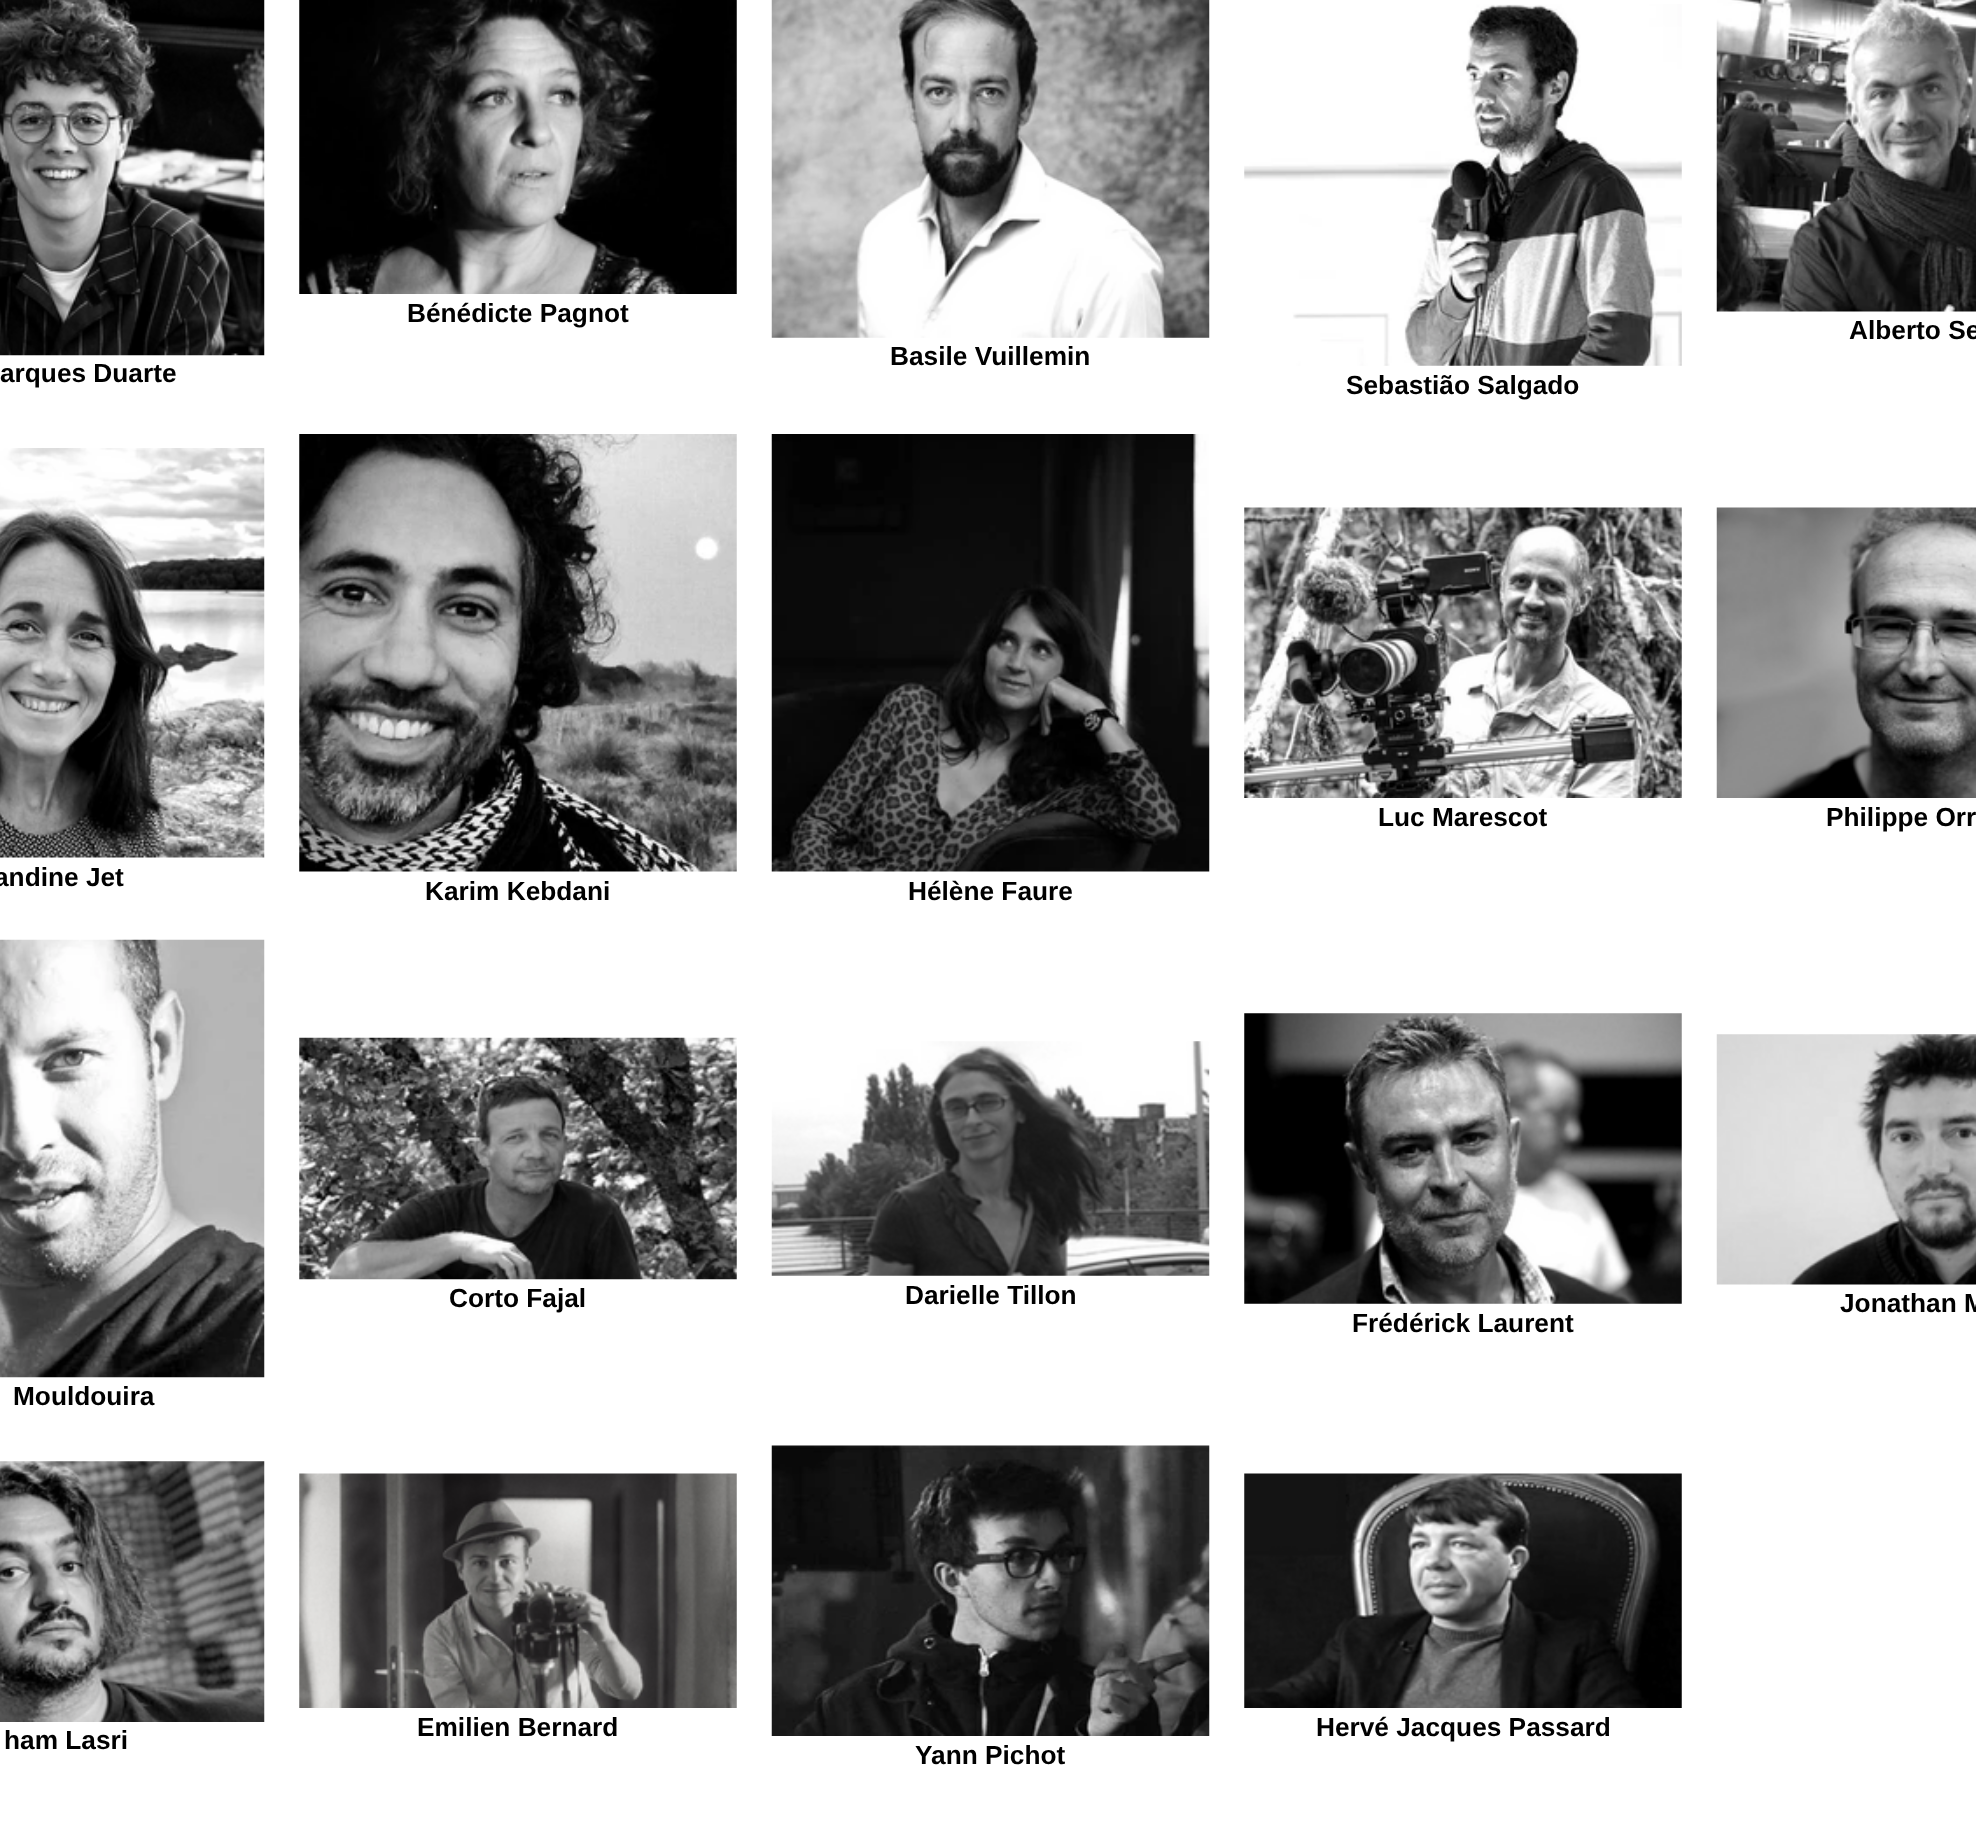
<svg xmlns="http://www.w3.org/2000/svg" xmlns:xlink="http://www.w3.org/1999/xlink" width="1976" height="1843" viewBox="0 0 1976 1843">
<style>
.cls-1{font:bold 26.25px Liberation Sans;fill:#000000}
</style>
<rect width="100%" height="100%" fill="#ffffff"/>
<image xlink:href="image0.png" x="299" y="0" width="438" height="294"/>
<image xlink:href="image1.png" x="1716" y="0" width="260" height="312"/>
<image xlink:href="image2.png" x="771" y="0" width="439" height="338"/>
<image xlink:href="image3.png" x="0" y="0" width="265" height="356"/>
<image xlink:href="image4.png" x="1244" y="4" width="438" height="362"/>
<image xlink:href="image5.png" x="1244" y="507" width="438" height="291"/>
<image xlink:href="image6.png" x="1716" y="507" width="260" height="291"/>
<image xlink:href="image7.png" x="0" y="448" width="265" height="410"/>
<image xlink:href="image8.png" x="299" y="434" width="438" height="438"/>
<image xlink:href="image9.png" x="771" y="434" width="439" height="438"/>
<image xlink:href="image10.png" x="299" y="1037" width="438" height="243"/>
<image xlink:href="image11.png" x="771" y="1041" width="439" height="235"/>
<image xlink:href="image12.png" x="1716" y="1034" width="260" height="251"/>
<image xlink:href="image13.png" x="1244" y="1013" width="438" height="291"/>
<image xlink:href="image14.png" x="0" y="939" width="265" height="439"/>
<image xlink:href="image15.png" x="299" y="1473" width="438" height="235"/>
<image xlink:href="image16.png" x="1244" y="1473" width="438" height="235"/>
<image xlink:href="image17.png" x="0" y="1461" width="265" height="261"/>
<image xlink:href="image18.png" x="771" y="1445" width="439" height="291"/>
<text class="cls-1" x="407" y="322">Bénédicte Pagnot</text>
<text class="cls-1" x="1849" y="339">Alberto Se</text>
<text class="cls-1" x="890" y="365">Basile Vuillemin</text>
<text class="cls-1" x="0" y="382">arques Duarte</text>
<text class="cls-1" x="1346" y="394">Sebastião Salgado</text>
<text class="cls-1" x="1378" y="826">Luc Marescot</text>
<text class="cls-1" x="1826" y="826">Philippe Orr</text>
<text class="cls-1" x="-6" y="886">andine Jet</text>
<text class="cls-1" x="425" y="900">Karim Kebdani</text>
<text class="cls-1" x="908" y="900">Hélène Faure</text>
<text class="cls-1" x="449" y="1307">Corto Fajal</text>
<text class="cls-1" x="905" y="1304">Darielle Tillon</text>
<text class="cls-1" x="1840" y="1312">Jonathan M</text>
<text class="cls-1" x="1352" y="1332">Frédérick Laurent</text>
<text class="cls-1" x="13" y="1405">Mouldouira</text>
<text class="cls-1" x="417" y="1736">Emilien Bernard</text>
<text class="cls-1" x="1316" y="1736">Hervé Jacques Passard</text>
<text class="cls-1" x="4" y="1749">ham Lasri</text>
<text class="cls-1" x="915" y="1764">Yann Pichot</text>
</svg>
